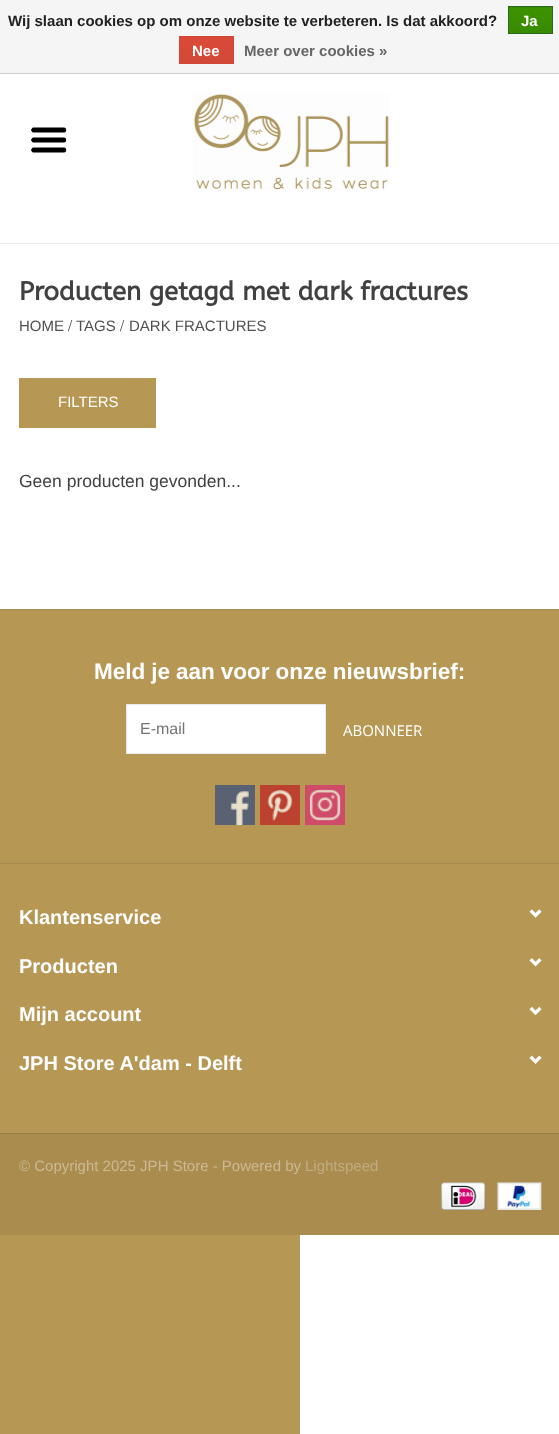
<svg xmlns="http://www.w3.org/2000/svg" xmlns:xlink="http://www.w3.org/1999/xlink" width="559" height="1434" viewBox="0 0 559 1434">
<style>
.cls-1{font:bold 15px Liberation Sans;fill:#222222}
.cls-2{font:bold 15px Liberation Sans;fill:#ffffff}
.cls-3{font:bold 15px Liberation Sans;fill:#666666}
.cls-4{font:bold 25.8px ABeeZee;fill:#414141}
.cls-5{font:15px Liberation Sans;fill:#505050}
.cls-6{font:15px Siemreap;fill:#505050}
.cls-7{font:15px Liberation Sans;fill:#ffffff}
.cls-8{font:17.5px Liberation Sans;fill:#414141}
.cls-9{font:bold 22.5px Liberation Sans;fill:#ffffff}
.cls-10{font:16px Liberation Sans;fill:#757575}
.cls-11{font:15px Open Sans;fill:#ffffff}
.cls-12{font:bold 20px Liberation Sans;fill:#ffffff}
.cls-13{font:15px Liberation Sans;fill:#cbba95}
.cls-14{font:15px Liberation Sans;fill:#c1ac80}
</style>
<defs>
<linearGradient id="g1" gradientUnits="userSpaceOnUse" x1="530" y1="-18" x2="530" y2="7.5"><stop offset="0" stop-color="#3c9300"/><stop offset="1" stop-color="#398a00"/></linearGradient>
<linearGradient id="g2" gradientUnits="userSpaceOnUse" x1="530" y1="7.5" x2="530" y2="33"><stop offset="0" stop-color="#3c9300"/><stop offset="1" stop-color="#398a00"/></linearGradient>
<linearGradient id="g3" gradientUnits="userSpaceOnUse" x1="206" y1="12" x2="206" y2="38"><stop offset="0" stop-color="#dc4a38"/><stop offset="1" stop-color="#d14836"/></linearGradient>
<linearGradient id="g4" gradientUnits="userSpaceOnUse" x1="206" y1="38" x2="206" y2="63"><stop offset="0" stop-color="#dc4a38"/><stop offset="1" stop-color="#d14836"/></linearGradient>
</defs>
<rect width="100%" height="100%" fill="#ffffff"/>
<rect fill="#f5f5f5" x="0" y="0" width="559" height="73"/>
<rect fill="#cccccc" x="0" y="73" width="559" height="1"/>
<rect fill="url(#g1)" x="508" y="7" width="45" height="1"/>
<rect fill="url(#g2)" x="509" y="8" width="43" height="25"/>
<rect fill="none" stroke="#29691d" x="508.5" y="6.5" width="44" height="27"/>
<rect fill="url(#g3)" x="179" y="37" width="55" height="1"/>
<rect fill="url(#g4)" x="180" y="38" width="53" height="25"/>
<rect fill="none" stroke="#d14836" x="179.5" y="36.5" width="54" height="27"/>
<rect fill="#eaeaea" x="0" y="243" width="559" height="1"/>
<image xlink:href="image0.png" x="193" y="93" width="196" height="97"/>
<image xlink:href="image1.png" x="31" y="127" width="36" height="26"/>
<rect fill="#b69754" x="0" y="1235" width="300" height="199"/>
<rect fill="#b69754" x="19" y="378" width="137" height="50"/>
<rect fill="#b69754" x="0" y="610" width="559" height="523"/>
<rect fill="#a78a4d" x="0" y="609" width="559" height="1"/>
<rect fill="#ffffff" stroke="#e9e9e9" x="126.5" y="704.5" width="199" height="49"/>
<image xlink:href="image2.png" x="215" y="785" width="40" height="40"/>
<image xlink:href="image3.png" x="260" y="785" width="40" height="40"/>
<image xlink:href="image4.png" x="305" y="785" width="40" height="40"/>
<rect fill="#a78a4d" x="0" y="863" width="559" height="1"/>
<image xlink:href="image5.png" x="529" y="909" width="13" height="9"/>
<image xlink:href="image6.png" x="529" y="958" width="13" height="9"/>
<image xlink:href="image7.png" x="529" y="1006" width="13" height="10"/>
<image xlink:href="image8.png" x="529" y="1055" width="13" height="9"/>
<rect fill="#9b8047" x="0" y="1133" width="559" height="1"/>
<rect fill="#a98c4e" x="0" y="1134" width="559" height="101"/>
<image xlink:href="image9.png" x="441" y="1182" width="44" height="28"/>
<image xlink:href="image10.png" x="497" y="1182" width="45" height="28"/>
<text class="cls-1" x="8" y="26">Wij slaan cookies op om onze website te verbeteren. Is dat akkoord?</text>
<text class="cls-2" x="521" y="26">Ja</text>
<text class="cls-2" x="192" y="56">Nee</text>
<text class="cls-3" x="244" y="56">Meer over cookies »</text>
<text class="cls-4" x="19" y="300">Producten getagd met dark fractures</text>
<text class="cls-5" x="19" y="331">HOME</text>
<text class="cls-6" x="68" y="331">/</text>
<text class="cls-5" x="76" y="331">TAGS</text>
<text class="cls-6" x="120" y="331">/</text>
<text class="cls-5" x="129" y="331">DARK FRACTURES</text>
<text class="cls-7" x="58" y="407">FILTERS</text>
<text class="cls-8" x="19" y="487">Geen producten gevonden...</text>
<text class="cls-9" x="94" y="679" word-spacing="-0.25">Meld je aan voor onze nieuwsbrief:</text>
<text class="cls-10" x="140" y="734">E-mail</text>
<text class="cls-11" x="343" y="736">ABONNEER</text>
<text class="cls-12" x="19" y="924">Klantenservice</text>
<text class="cls-12" x="19" y="973">Producten</text>
<text class="cls-12" x="19" y="1021">Mijn account</text>
<text class="cls-12" x="19" y="1070">JPH Store A'dam - Delft</text>
<text class="cls-13" x="19" y="1171">© Copyright 2025 JPH Store - Powered by</text>
<text class="cls-14" x="305" y="1171">Lightspeed</text>
</svg>
